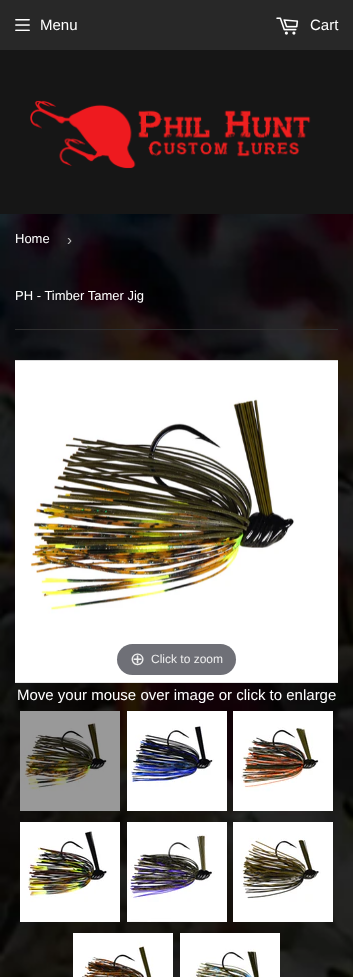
<svg xmlns="http://www.w3.org/2000/svg" xmlns:xlink="http://www.w3.org/1999/xlink" width="353" height="977" viewBox="0 0 353 977">
<style>
.cls-1{font:15px Liberation Sans;fill:#ffffff}
.cls-2{font:13px Liberation Sans;fill:#ffffff}
.cls-3{font:15px Liberation Sans;fill:#bbbbbb}
.cls-4{font:18px DejaVu Sans;fill:#eeeeee}
.cls-5{font:12px Liberation Sans;fill:#eeeeee}
</style>
<rect width="100%" height="100%" fill="#ffffff"/>
<image xlink:href="image0.png" x="0" y="214" width="353" height="763"/>
<rect fill="#282828" x="0" y="0" width="353" height="50"/>
<image xlink:href="image1.png" x="15" y="19" width="15" height="12"/>
<image xlink:href="image2.png" x="276" y="17" width="23" height="18"/>
<rect fill="#161616" x="0" y="50" width="353" height="164"/>
<image xlink:href="image3.png" x="30" y="100" width="281" height="69"/>
<rect fill="#2e2e2e" x="15" y="329" width="323" height="1"/>
<image xlink:href="image4.png" x="15" y="360" width="323" height="323"/>
<rect fill="#6f7077" x="117" y="644" width="119" height="31" rx="15.5"/>
<image xlink:href="image5.png" x="20" y="711" width="100" height="100"/>
<image xlink:href="image6.png" x="127" y="711" width="100" height="100"/>
<image xlink:href="image7.png" x="233" y="711" width="100" height="100"/>
<image xlink:href="image8.png" x="20" y="822" width="100" height="100"/>
<image xlink:href="image9.png" x="127" y="822" width="100" height="100"/>
<image xlink:href="image10.png" x="233" y="822" width="100" height="100"/>
<image xlink:href="image11.png" x="73" y="933" width="100" height="44"/>
<image xlink:href="image12.png" x="180" y="933" width="100" height="44"/>
<text class="cls-1" x="40" y="30">Menu</text>
<text class="cls-1" x="310" y="30">Cart</text>
<text class="cls-2" x="15" y="243">Home</text>
<text class="cls-3" x="67" y="245">›</text>
<text class="cls-2" x="15" y="300">PH - Timber Tamer Jig</text>
<text class="cls-4" x="130" y="665">⊕</text>
<text class="cls-5" x="151" y="663">Click to zoom</text>
<text class="cls-1" x="17" y="700">Move your mouse over image or click to enlarge</text>
</svg>
